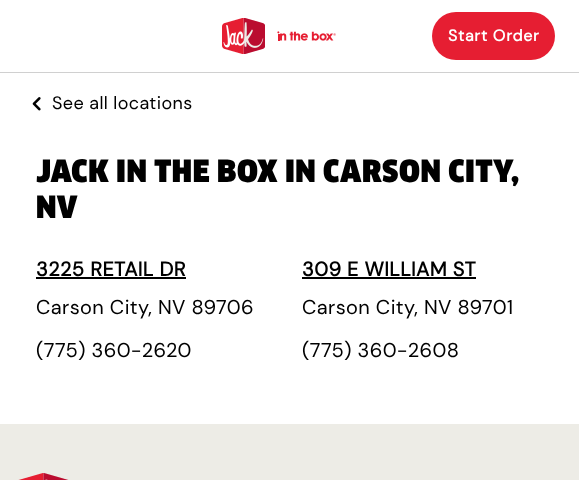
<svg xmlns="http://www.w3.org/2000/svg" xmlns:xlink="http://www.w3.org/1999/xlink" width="579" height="480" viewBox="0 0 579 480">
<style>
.cls-1{font:bold 16px DM Sans;letter-spacing:0.75px;fill:#ffffff}
.cls-2{font:18px DM Sans;letter-spacing:0.4px;fill:#000000}
.cls-3{font:900 30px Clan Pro;letter-spacing:0.6px;fill:#000000}
.cls-4{font:bold 20px DM Sans;letter-spacing:0.4px;fill:#000000}
.cls-5{font:20px DM Sans;letter-spacing:0.4px;fill:#000000}
</style>
<rect width="100%" height="100%" fill="#ffffff"/>
<rect fill="#d0d0d0" x="0" y="72" width="579" height="1"/>
<image xlink:href="image0.png" x="222" y="18" width="114" height="36"/>
<rect fill="#e61e32" x="432" y="12" width="123" height="48" rx="24"/>
<image xlink:href="image1.png" x="32" y="97" width="9" height="14"/>
<rect fill="#000000" x="36" y="277" width="150" height="2"/>
<rect fill="#000000" x="302" y="277" width="174" height="2"/>
<rect fill="#edece6" x="0" y="424" width="579" height="56"/>
<image xlink:href="image2.png" x="18" y="473" width="51" height="7"/>
<text class="cls-1" x="448" y="41">Start Order</text>
<text class="cls-2" x="52" y="109">See all locations</text>
<text class="cls-3"><tspan x="36" y="182">JACK IN THE BOX IN CARSON CITY,</tspan><tspan x="36" y="218">NV</tspan></text>
<text class="cls-4" x="36" y="276">3225 RETAIL DR</text>
<text class="cls-5" x="36" y="314">Carson City, NV 89706</text>
<text class="cls-5" x="36" y="357">(775) 360-2620</text>
<text class="cls-4" x="302" y="276">309 E WILLIAM ST</text>
<text class="cls-5" x="302" y="314">Carson City, NV 89701</text>
<text class="cls-5" x="302" y="357">(775) 360-2608</text>
</svg>
